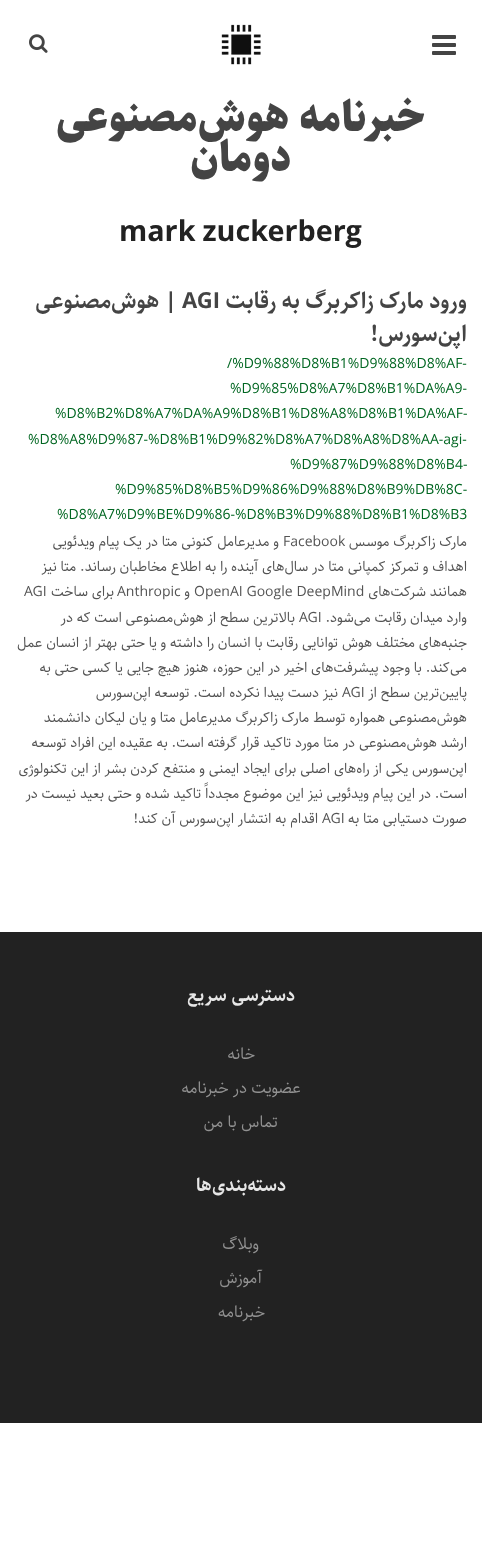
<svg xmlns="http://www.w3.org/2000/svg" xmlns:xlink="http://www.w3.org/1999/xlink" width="482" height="1563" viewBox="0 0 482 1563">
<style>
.cls-1{font:900 40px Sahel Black;direction:rtl;fill:#444444}
.cls-2{font:bold 28.75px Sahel;fill:#222222}
.cls-3{font:bold 22px Sahel;direction:rtl;fill:#444444}
.cls-4{font:bold 22px Sahel;fill:#444444}
.cls-5{font:14px Sahel;fill:#006621}
.cls-6{font:14px Sahel;direction:rtl;fill:#545454}
.cls-7{font:14px Sahel;fill:#545454}
.cls-8{font:bold 18px Sahel;direction:rtl;fill:#e7e7e7}
.cls-9{font:16px Sahel;direction:rtl;fill:#919191}
</style>
<rect width="100%" height="100%" fill="#ffffff"/>
<image xlink:href="image0.png" x="432" y="35" width="24" height="20"/>
<image xlink:href="image1.png" x="221" y="24" width="40" height="41"/>
<image xlink:href="image2.png" x="29" y="34" width="19" height="19"/>
<rect fill="#222222" x="0" y="932" width="482" height="491"/>
<text class="cls-1" x="425" y="131">خبرنامه هوش‌مصنوعی</text>
<text class="cls-1" x="291" y="171">دومان</text>
<text class="cls-2" x="119" y="241">mark zuckerberg</text>
<text class="cls-3" x="467" y="308">ورود مارک زاکربرگ به رقابت</text>
<text class="cls-4" x="182" y="308">AGI</text>
<text class="cls-3" x="177" y="308">| هوش‌مصنوعی</text>
<text class="cls-3" x="467" y="341">اپن‌سورس!</text>
<text class="cls-5" x="227" y="368">/%D9%88%D8%B1%D9%88%D8%AF-</text>
<text class="cls-5" x="230" y="393">%D9%85%D8%A7%D8%B1%DA%A9-</text>
<text class="cls-5" x="55" y="418">%D8%B2%D8%A7%DA%A9%D8%B1%D8%A8%D8%B1%DA%AF-</text>
<text class="cls-5" x="28" y="444">%D8%A8%D9%87-%D8%B1%D9%82%D8%A7%D8%A8%D8%AA-agi-</text>
<text class="cls-5" x="290" y="469">%D9%87%D9%88%D8%B4-</text>
<text class="cls-5" x="115" y="494">%D9%85%D8%B5%D9%86%D9%88%D8%B9%DB%8C-</text>
<text class="cls-5" x="57" y="519">%D8%A7%D9%BE%D9%86-%D8%B3%D9%88%D8%B1%D8%B3</text>
<text class="cls-6" x="467" y="546">مارک زاکربرگ موسس</text>
<text class="cls-7" x="283" y="546">Facebook</text>
<text class="cls-6" x="279" y="546">و مدیرعامل کنونی متا در یک پیام ویدئویی</text>
<text class="cls-6"><tspan x="467" y="571">اهداف و تمرکز کمپانی متا در سال‌های آینده را به اطلاع مخاطبان رساند. متا نیز</tspan><tspan x="467" y="596">همانند شرکت‌های</tspan></text>
<text class="cls-7" x="194" y="596">OpenAI Google DeepMind</text>
<text class="cls-6" x="190" y="596">و</text>
<text class="cls-7" x="117" y="596">Anthropic</text>
<text class="cls-6" x="114" y="596">برای ساخت</text>
<text class="cls-7" x="24" y="596">AGI</text>
<text class="cls-6" x="467" y="622">وارد میدان رقابت می‌شود.</text>
<text class="cls-7" x="299" y="622">AGI</text>
<text class="cls-6" x="295" y="622">بالاترین سطح از هوش‌مصنوعی است که در</text>
<text class="cls-6"><tspan x="467" y="647">جنبه‌های مختلف هوش توانایی رقابت با انسان را داشته و یا حتی بهتر از انسان عمل</tspan><tspan x="467" y="672">می‌کند. با وجود پیشرفت‌های اخیر در این حوزه، هنوز هیچ جایی یا کسی حتی به</tspan><tspan x="467" y="697">پایین‌ترین سطح از</tspan></text>
<text class="cls-7" x="342" y="697">AGI</text>
<text class="cls-6" x="338" y="697">نیز دست پیدا نکرده است. توسعه اپن‌سورس</text>
<text class="cls-6"><tspan x="467" y="722">هوش‌مصنوعی همواره توسط مارک زاکربرگ مدیرعامل متا و یان لیکان دانشمند</tspan><tspan x="467" y="747">ارشد هوش‌مصنوعی در متا مورد تاکید قرار گرفته است. به عقیده این افراد توسعه</tspan><tspan x="467" y="773">اپن‌سورس یکی از راه‌های اصلی برای ایجاد ایمنی و منتفع کردن بشر از این تکنولوژی</tspan><tspan x="467" y="798">است. در این پیام ویدئویی نیز این موضوع مجدداً تاکید شده و حتی بعید نیست در</tspan><tspan x="467" y="823">صورت دستیابی متا به</tspan></text>
<text class="cls-7" x="322" y="823">AGI</text>
<text class="cls-6" x="318" y="823">اقدام به انتشار اپن‌سورس آن کند!</text>
<text class="cls-8" x="295" y="1001">دسترسی سریع</text>
<text class="cls-9" x="255" y="1059">خانه</text>
<text class="cls-9" x="301" y="1093">عضویت در خبرنامه</text>
<text class="cls-9" x="278" y="1127">تماس با من</text>
<text class="cls-8" x="286" y="1191">دسته‌بندی‌ها</text>
<text class="cls-9" x="259" y="1249">وبلاگ</text>
<text class="cls-9" x="262" y="1283">آموزش</text>
<text class="cls-9" x="265" y="1317">خبرنامه</text>
</svg>
